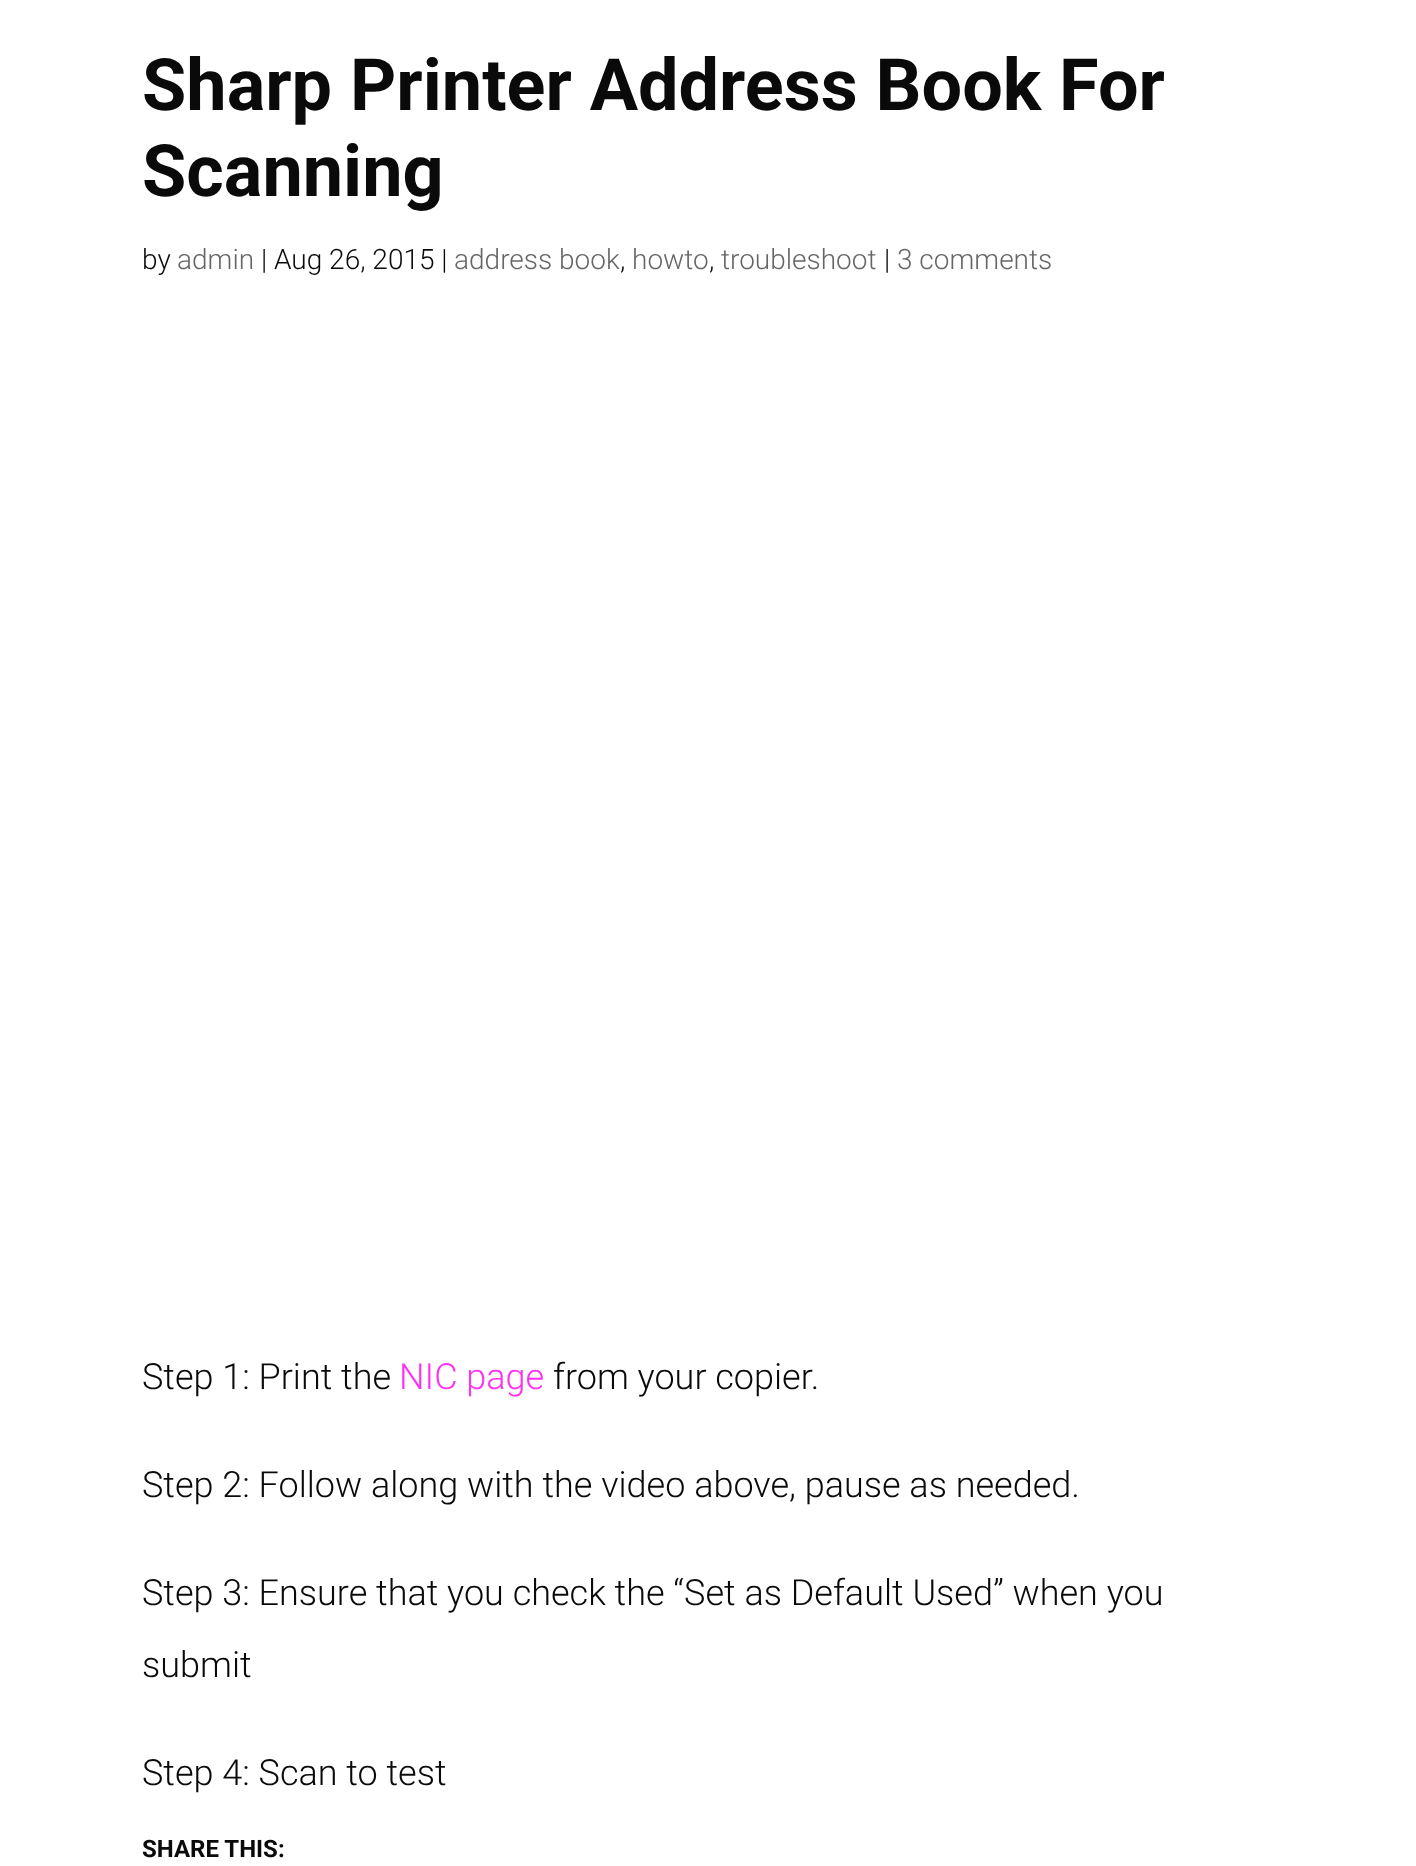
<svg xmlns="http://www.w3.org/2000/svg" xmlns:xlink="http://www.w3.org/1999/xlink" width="1416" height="1866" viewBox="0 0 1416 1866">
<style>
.cls-1{font:bold 72px Roboto;fill:#0a0a0a}
.cls-2{font:300 28px Roboto;fill:#0a0a0a}
.cls-3{font:300 28px Roboto;fill:#666666}
.cls-4{font:300 36px Roboto;fill:#0a0a0a}
.cls-5{font:300 36px Roboto;fill:#ff30f1}
.cls-6{font:bold 24px Roboto;fill:#0a0a0a}
</style>
<rect width="100%" height="100%" fill="#ffffff"/>
<text class="cls-1"><tspan x="142" y="110">Sharp Printer Address Book For</tspan><tspan x="142" y="196">Scanning</tspan></text>
<text class="cls-2" x="142" y="269">by</text>
<text class="cls-3" x="177" y="269">admin</text>
<text class="cls-2" x="261" y="269">| Aug 26, 2015 |</text>
<text class="cls-3" x="454" y="269">address book</text>
<text class="cls-2" x="620" y="269">,</text>
<text class="cls-3" x="632" y="269">howto</text>
<text class="cls-2" x="709" y="269">,</text>
<text class="cls-3" x="721" y="269">troubleshoot</text>
<text class="cls-2" x="884" y="269">|</text>
<text class="cls-3" x="897" y="269">3 comments</text>
<text class="cls-4" x="142" y="1389">Step 1: Print the</text>
<text class="cls-5" x="399" y="1389">NIC page</text>
<text class="cls-4" x="553" y="1389">from your copier.</text>
<text class="cls-4" x="142" y="1497">Step 2: Follow along with the video above, pause as needed.</text>
<text class="cls-4" x="142" y="1605">Step 3: Ensure that you check the “Set as Default Used” when you</text>
<text class="cls-4" x="142" y="1677">submit</text>
<text class="cls-4" x="142" y="1785">Step 4: Scan to test</text>
<text class="cls-6" x="142" y="1857">SHARE THIS:</text>
</svg>
